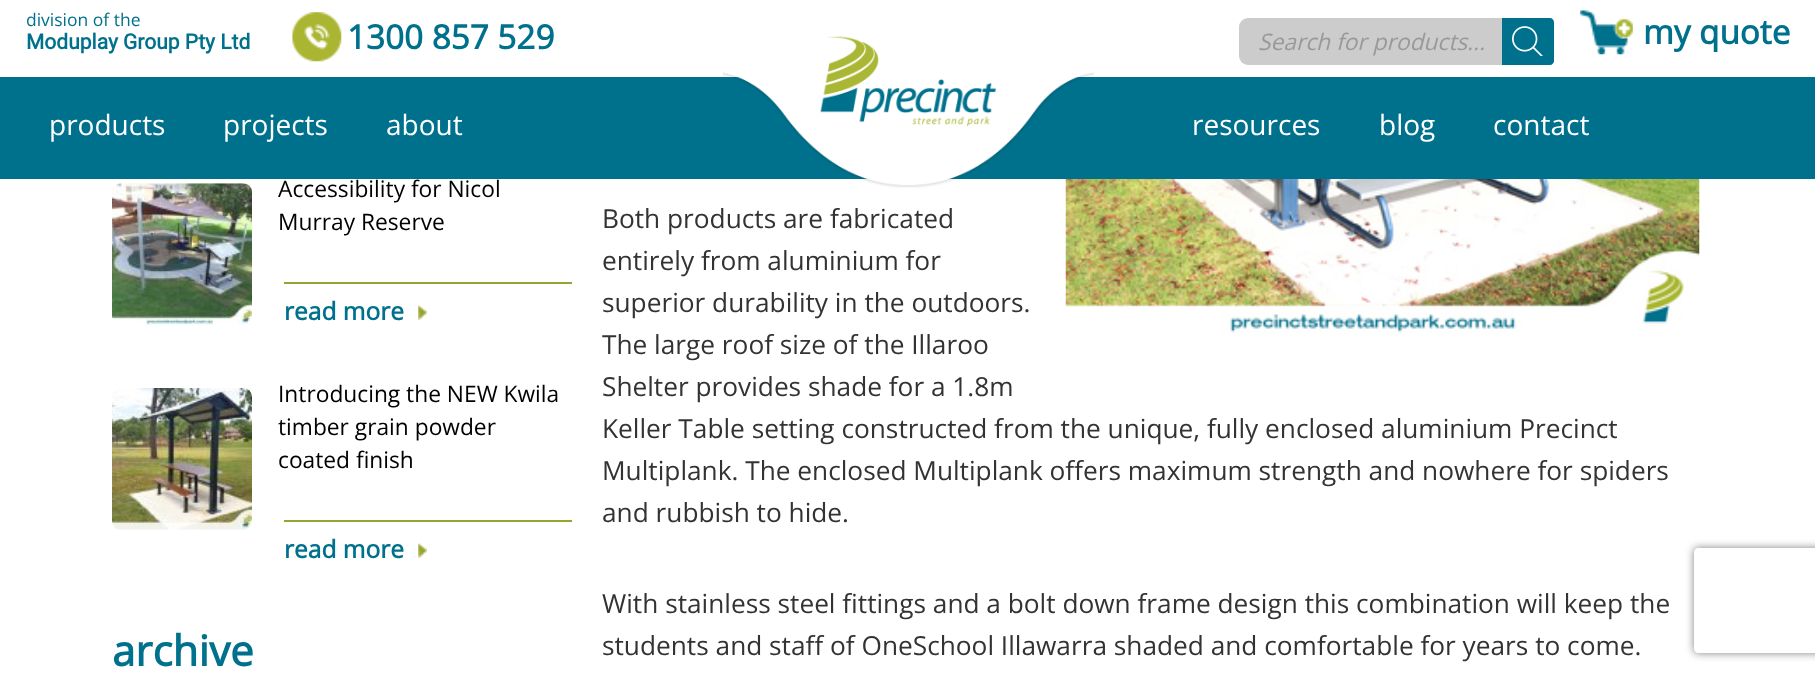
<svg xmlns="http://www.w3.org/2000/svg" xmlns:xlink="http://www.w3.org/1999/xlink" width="1815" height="676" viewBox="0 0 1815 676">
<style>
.cls-1{font:17.5px Open Sans;fill:#00718c}
.cls-2{font:bold 21px Roboto;fill:#00718c}
.cls-3{font:bold 33.25px Open Sans;fill:#00718c}
.cls-4{font:italic 22.75px Open Sans;fill:#999999}
.cls-5{font:28px Open Sans;fill:#ffffff}
.cls-6{font:22.75px Open Sans;fill:#000000}
.cls-7{font:bold 24.5px Open Sans;fill:#00718c}
.cls-8{font:bold 42px Open Sans;fill:#00718c}
.cls-9{font:26.25px Open Sans;fill:#333333}
</style>
<defs>
<clipPath id="clip1"><path d="M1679 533H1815V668H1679ZM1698 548H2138C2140 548 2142 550 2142 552V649C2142 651 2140 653 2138 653H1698C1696 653 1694 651 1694 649V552C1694 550 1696 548 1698 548Z" clip-rule="evenodd"/></clipPath>
</defs>
<rect width="100%" height="100%" fill="#ffffff"/>
<image xlink:href="image0.png" x="292" y="12" width="50" height="50"/>
<rect fill="#00718c" x="0" y="77" width="1815" height="102"/>
<image xlink:href="image8.png" x="1065" y="179" width="635" height="154"/>
<image xlink:href="image4.png" x="722" y="72" width="372" height="116"/>
<image xlink:href="image1.png" x="820" y="36" width="176" height="90"/>
<rect fill="#cccccc" x="1239" y="18" width="315" height="47" rx="9"/>
<path fill="#00718c" d="M1502 18H1550C1552 18 1554 20 1554 22V61C1554 63 1552 65 1550 65H1502Z"/>
<image xlink:href="image2.png" x="1512" y="26" width="31" height="30"/>
<image xlink:href="image3.png" x="1580" y="10" width="53" height="45"/>
<image xlink:href="image5.png" x="112" y="183" width="140" height="142"/>
<image xlink:href="image6.png" x="418" y="305" width="9" height="15"/>
<rect fill="#97a42e" x="284" y="282" width="288" height="2"/>
<image xlink:href="image7.png" x="112" y="388" width="140" height="142"/>
<image xlink:href="image6.png" x="418" y="543" width="9" height="15"/>
<rect fill="#97a42e" x="284" y="520" width="288" height="2"/>
<g clip-path="url(#clip1)">
<rect fill="#808080" filter="blur(4.5px)" x="1694" y="548" width="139" height="105" rx="4"/>
</g>
<text class="cls-1" x="26" y="26">division of the</text>
<text class="cls-2" x="26" y="49">Moduplay Group Pty Ltd</text>
<text class="cls-3" x="347" y="49">1300 857 529</text>
<text class="cls-4" x="1258" y="50">Search for products...</text>
<text class="cls-3" x="1643" y="44">my quote</text>
<text class="cls-5" x="49" y="135">products</text>
<text class="cls-5" x="223" y="135">projects</text>
<text class="cls-5" x="386" y="135">about</text>
<text class="cls-5" x="1192" y="135">resources</text>
<text class="cls-5" x="1379" y="135">blog</text>
<text class="cls-5" x="1493" y="135">contact</text>
<text class="cls-6"><tspan x="278" y="197">Accessibility for Nicol</tspan><tspan x="278" y="230">Murray Reserve</tspan></text>
<text class="cls-7" x="284" y="320">read more</text>
<text class="cls-6"><tspan x="278" y="402">Introducing the NEW Kwila</tspan><tspan x="278" y="435">timber grain powder</tspan><tspan x="278" y="468">coated finish</tspan></text>
<text class="cls-7" x="284" y="558">read more</text>
<text class="cls-8" x="112" y="666">archive</text>
<text class="cls-9"><tspan x="602" y="228">Both products are fabricated</tspan><tspan x="602" y="270">entirely from aluminium for</tspan><tspan x="602" y="312">superior durability in the outdoors.</tspan><tspan x="602" y="354">The large roof size of the Illaroo</tspan><tspan x="602" y="396">Shelter provides shade for a 1.8m</tspan><tspan x="602" y="438">Keller Table setting constructed from the unique, fully enclosed aluminium Precinct</tspan><tspan x="602" y="480">Multiplank. The enclosed Multiplank offers maximum strength and nowhere for spiders</tspan><tspan x="602" y="522">and rubbish to hide.</tspan></text>
<text class="cls-9"><tspan x="602" y="613">With stainless steel fittings and a bolt down frame design this combination will keep the</tspan><tspan x="602" y="655">students and staff of OneSchool Illawarra shaded and comfortable for years to come.</tspan></text>
</svg>
